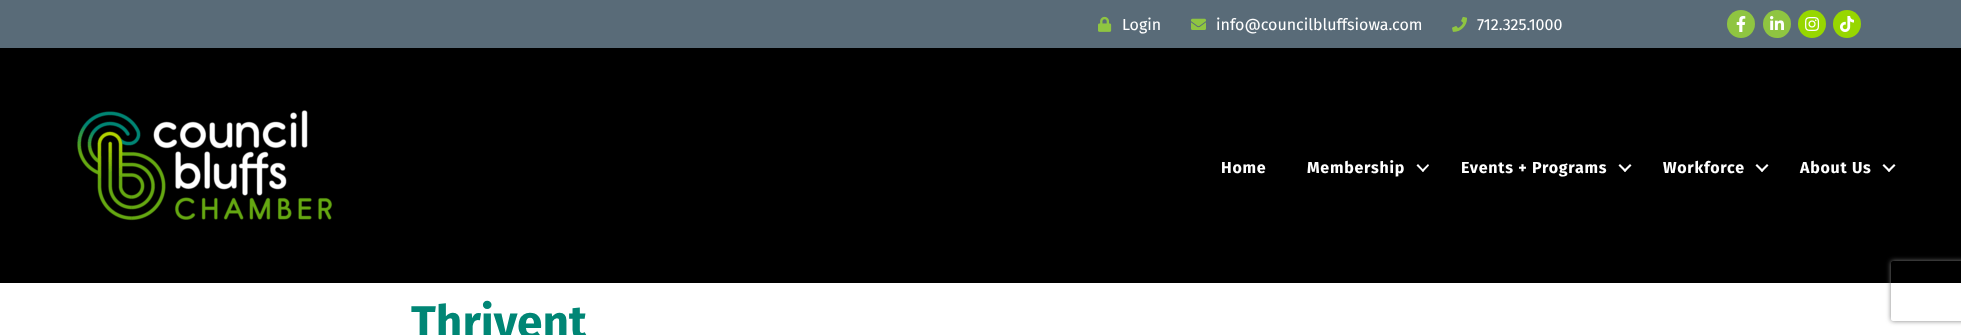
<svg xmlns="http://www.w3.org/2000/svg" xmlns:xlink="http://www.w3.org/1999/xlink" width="1961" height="335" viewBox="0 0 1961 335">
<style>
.cls-1{font:16px Fira Sans;fill:#ffffff}
.cls-2{font:bold 16px Fira Sans;letter-spacing:0.75px;fill:#ffffff}
.cls-3{font:bold 46px Fira Sans;fill:#008675}
</style>
<defs>
<clipPath id="clip1"><path d="M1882 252H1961V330H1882ZM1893 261H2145C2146 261 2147 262 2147 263V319C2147 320 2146 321 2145 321H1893C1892 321 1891 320 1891 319V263C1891 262 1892 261 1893 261Z" clip-rule="evenodd"/></clipPath>
</defs>
<rect width="100%" height="100%" fill="#596b78"/>
<image xlink:href="image0.png" x="1098" y="16" width="14" height="16"/>
<image xlink:href="image1.png" x="1191" y="18" width="15" height="12"/>
<image xlink:href="image2.png" x="1452" y="16" width="15" height="16"/>
<circle fill="#8fc541" cx="1741" cy="24" r="14"/>
<image xlink:href="image3.png" x="1736" y="16" width="10" height="16"/>
<circle fill="#8fc541" cx="1777" cy="24" r="14"/>
<image xlink:href="image4.png" x="1770" y="16" width="14" height="14"/>
<circle fill="#97d700" cx="1812" cy="24" r="14"/>
<image xlink:href="image5.png" x="1805" y="17" width="15" height="14"/>
<circle fill="#97d700" cx="1847" cy="24" r="14"/>
<image xlink:href="image6.png" x="1840" y="16" width="14" height="16"/>
<rect fill="#000000" x="0" y="48" width="1961" height="235"/>
<image xlink:href="image7.png" x="77" y="110" width="256" height="111"/>
<path fill="#ffffff" d="M1428 164L1429 165.5L1423 172L1421.5 170.5Z"/>
<path fill="#ffffff" d="M1418 164L1424 170.5L1423 172L1416.5 165.5Z"/>
<path fill="#ffffff" d="M1630 164L1631.5 165.5L1625 172L1623.5 170.5Z"/>
<path fill="#ffffff" d="M1620 164L1626.5 170.5L1625 172L1618.5 165.5Z"/>
<path fill="#ffffff" d="M1767 164L1768.5 165.5L1762 172L1760.5 170.5Z"/>
<path fill="#ffffff" d="M1757 164L1763.5 170.5L1762 172L1755.5 165.5Z"/>
<path fill="#ffffff" d="M1894 164L1895.5 165.5L1889 172L1887.5 170.5Z"/>
<path fill="#ffffff" d="M1884 164L1890.5 170.5L1889 172L1882.5 165.5Z"/>
<rect fill="#ffffff" x="0" y="283" width="1961" height="52"/>
<g clip-path="url(#clip1)">
<rect fill="#808080" filter="blur(2.5px)" x="1891" y="261" width="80" height="60" rx="2"/>
</g>
<text class="cls-1" x="1122" y="30">Login</text>
<text class="cls-1" x="1216" y="30">info@councilbluffsiowa.com</text>
<text class="cls-1" x="1477" y="30">712.325.1000</text>
<text class="cls-2" x="1221" y="173">Home</text>
<text class="cls-2" x="1307" y="173">Membership</text>
<text class="cls-2" x="1461" y="173">Events + Programs</text>
<text class="cls-2" x="1663" y="173">Workforce</text>
<text class="cls-2" x="1800" y="173">About Us</text>
<text class="cls-3" x="411" y="338">Thrivent</text>
</svg>
